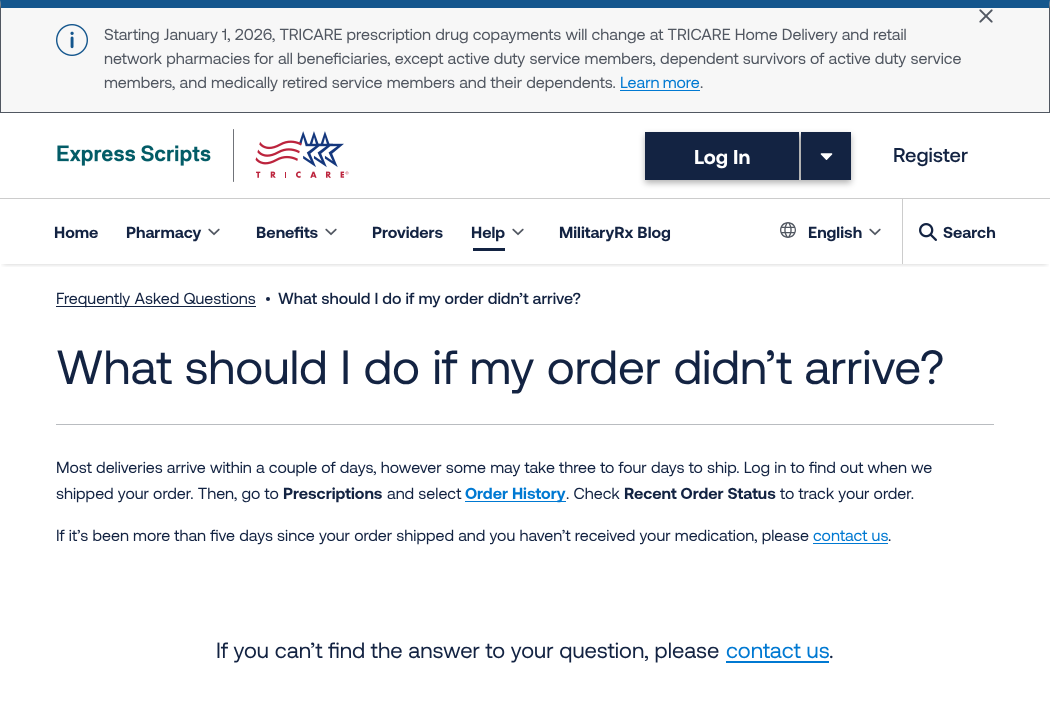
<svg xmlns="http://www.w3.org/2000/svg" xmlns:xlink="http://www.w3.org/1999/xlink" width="1050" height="708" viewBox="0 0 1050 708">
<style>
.cls-1{font:16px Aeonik;fill:#515761}
.cls-2{font:16px Aeonik;fill:#0079d2}
.cls-3{font:bold 20px Aeonik;fill:#ffffff}
.cls-4{font:500 20px Aeonik;fill:#132342}
.cls-5{font:bold 16px Aeonik;fill:#132342}
.cls-6{font:16px Aeonik;fill:#132342}
.cls-7{font:500 16px Aeonik;fill:#132342}
.cls-8{font:48px Aeonik;fill:#132342}
.cls-9{font:bold 16px Aeonik;fill:#0079d2}
.cls-10{font:22px Aeonik;fill:#132342}
.cls-11{font:22px Aeonik;fill:#0079d2}
</style>
<defs>
<clipPath id="clip1"><rect x="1" y="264" width="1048" height="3"/></clipPath>
</defs>
<rect width="100%" height="100%" fill="#ffffff"/>
<rect fill="#f7f7f7" x="1" y="8" width="1048" height="104"/>
<path fill="#14568d" d="M0 0H1050L1049 8H1Z"/>
<path fill="#515761" d="M1050 0V113L1049 112V8Z"/>
<rect fill="#515761" x="0" y="112" width="1050" height="1"/>
<path fill="#515761" d="M0 113V0L1 8V112Z"/>
<image xlink:href="image0.png" x="979" y="9" width="14" height="14"/>
<image xlink:href="image1.png" x="56" y="24" width="32" height="32"/>
<rect fill="#0079d2" x="620" y="90" width="80" height="1"/>
<image xlink:href="image2.png" x="57" y="129" width="292" height="53"/>
<rect fill="#000000" fill-opacity="0.3" filter="blur(3px)" x="645" y="135" width="206" height="48"/>
<rect fill="#132342" x="645" y="132" width="154" height="48"/>
<rect fill="#132342" x="801" y="132" width="50" height="48"/>
<image xlink:href="image3.png" x="820" y="153" width="13" height="7"/>
<g clip-path="url(#clip1)">
<rect fill="#000000" fill-opacity="0.2" filter="blur(2.5px)" x="3" y="204" width="1044" height="60"/>
</g>
<rect fill="#cccccc" x="0" y="198" width="1050" height="1"/>
<image xlink:href="image4.png" x="208" y="228" width="12" height="8"/>
<image xlink:href="image4.png" x="325" y="228" width="12" height="8"/>
<image xlink:href="image4.png" x="512" y="228" width="12" height="8"/>
<rect fill="#132342" x="473" y="248" width="32" height="3"/>
<rect fill="#cccccc" x="902" y="199" width="1" height="65"/>
<image xlink:href="image5.png" x="780" y="222" width="16" height="16"/>
<image xlink:href="image4.png" x="869" y="228" width="12" height="8"/>
<image xlink:href="image6.png" x="919" y="223" width="18" height="18"/>
<rect fill="#132342" x="56" y="306" width="200" height="1"/>
<circle fill="#132342" cx="268" cy="299" r="2"/>
<rect fill="#b9bcc0" x="56" y="424" width="938" height="1"/>
<rect fill="#0079d2" x="465" y="501" width="101" height="1"/>
<rect fill="#0079d2" x="813" y="543" width="75" height="1"/>
<rect fill="#0079d2" x="726" y="661" width="103" height="2"/>
<text class="cls-1"><tspan x="104" y="40">Starting January 1, 2026, TRICARE prescription drug copayments will change at TRICARE Home Delivery and retail</tspan><tspan x="104" y="64">network pharmacies for all beneficiaries, except active duty service members, dependent survivors of active duty service</tspan><tspan x="104" y="88">members, and medically retired service members and their dependents.</tspan></text>
<text class="cls-2" x="620" y="88" word-spacing="-1">Learn more</text>
<text class="cls-1" x="700" y="88">.</text>
<text class="cls-3" x="694" y="164">Log In</text>
<text class="cls-4" x="893" y="162">Register</text>
<text class="cls-5" x="54" y="238">Home</text>
<text class="cls-5" x="126" y="238">Pharmacy</text>
<text class="cls-5" x="256" y="238">Benefits</text>
<text class="cls-5" x="372" y="238">Providers</text>
<text class="cls-5" x="471" y="238">Help</text>
<text class="cls-5" x="559" y="238">MilitaryRx Blog</text>
<text class="cls-5" x="808" y="238">English</text>
<text class="cls-5" x="943" y="238">Search</text>
<text class="cls-6" x="56" y="304">Frequently Asked Questions</text>
<text class="cls-7" x="278" y="304">What should I do if my order didn’t arrive?</text>
<text class="cls-8" x="56" y="384">What should I do if my order didn’t arrive?</text>
<text class="cls-6"><tspan x="56" y="473">Most deliveries arrive within a couple of days, however some may take three to four days to ship. Log in to find out when we</tspan><tspan x="56" y="499">shipped your order. Then, go to</tspan></text>
<text class="cls-5" x="283" y="499">Prescriptions</text>
<text class="cls-6" x="387" y="499">and select</text>
<text class="cls-9" x="465" y="499">Order History</text>
<text class="cls-6" x="566" y="499">. Check</text>
<text class="cls-5" x="624" y="499">Recent Order Status</text>
<text class="cls-6" x="780" y="499">to track your order.</text>
<text class="cls-6" x="56" y="541">If it’s been more than five days since your order shipped and you haven’t received your medication, please</text>
<text class="cls-2" x="813" y="541">contact us</text>
<text class="cls-6" x="888" y="541">.</text>
<text class="cls-10" x="216" y="658">If you can’t find the answer to your question, please</text>
<text class="cls-11" x="726" y="658">contact us</text>
<text class="cls-10" x="829" y="658">.</text>
</svg>
